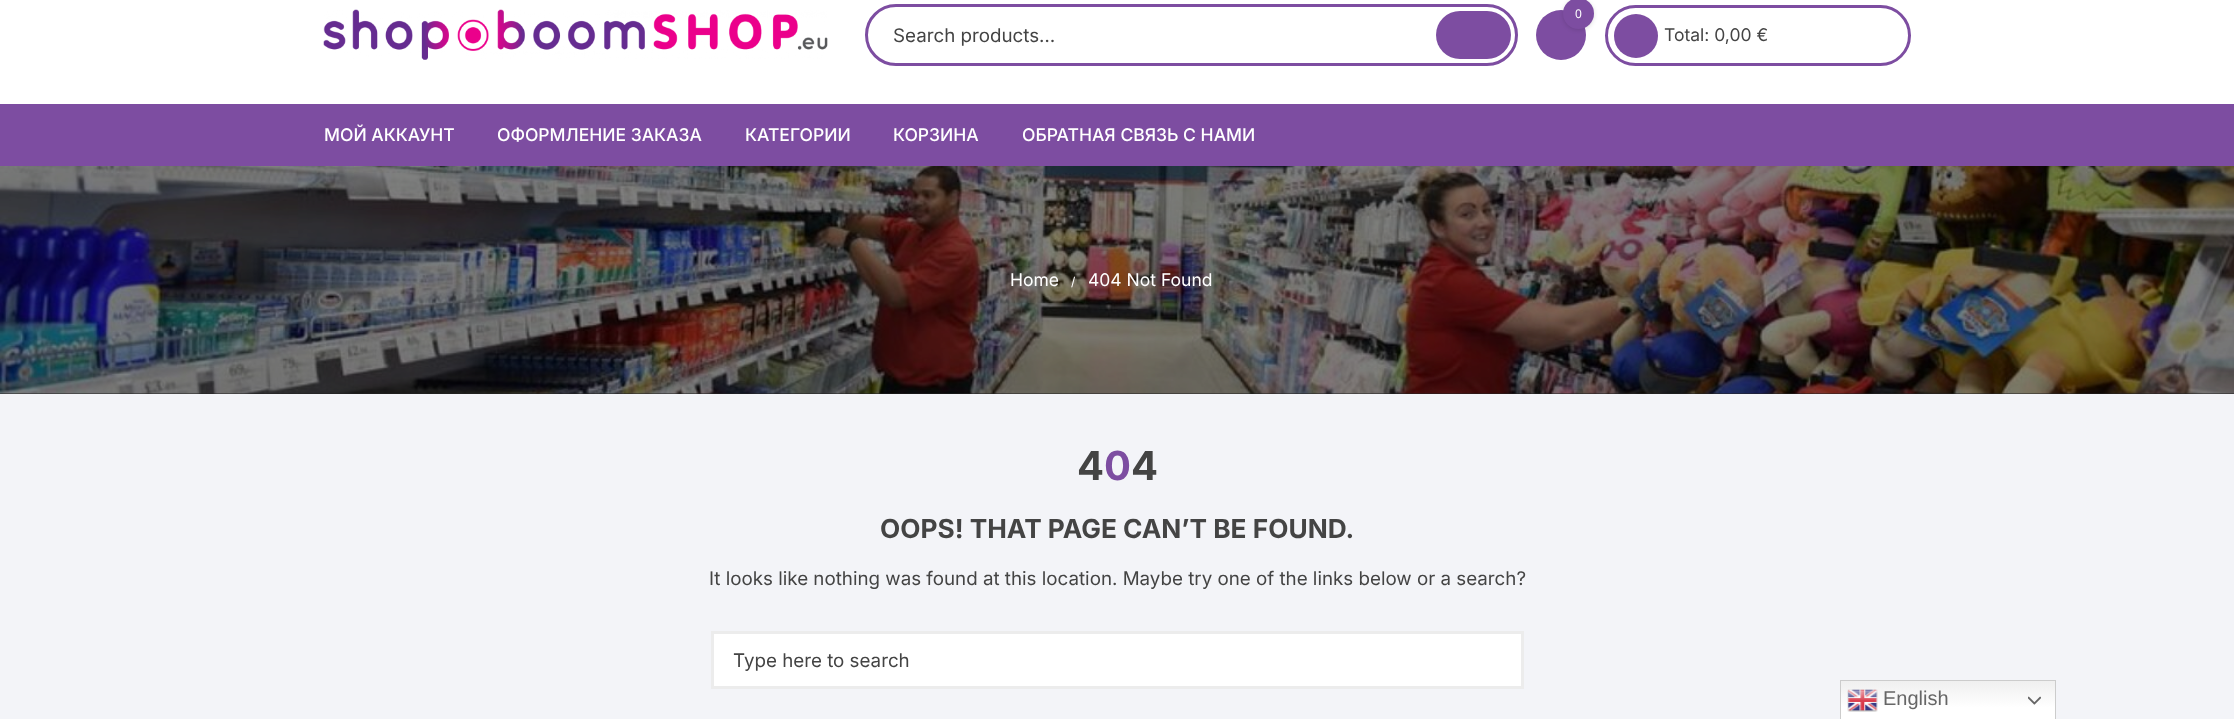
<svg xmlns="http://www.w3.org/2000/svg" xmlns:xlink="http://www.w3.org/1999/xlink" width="2234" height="719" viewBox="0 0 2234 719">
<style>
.cls-1{font:18.75px Inter;fill:#444444}
.cls-2{font:12px Noto Sans;fill:#ffffff}
.cls-3{font:17.5px Inter;fill:#444444}
.cls-4{font:500 17.5px Inter;fill:#ffffff}
.cls-5{font:17.5px Inter;fill:#ffffff}
.cls-6{font:12px Inter;fill:#ffffff}
.cls-7{font:bold 40px Inter;fill:#444444}
.cls-8{font:bold 40px Inter;fill:#7d4da1}
.cls-9{font:bold 26.25px Inter;fill:#444444}
.cls-10{font:20px Liberation Sans;fill:#666666}
</style>
<defs>
<linearGradient id="g1" gradientUnits="userSpaceOnUse" x1="1948" y1="680" x2="1948" y2="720"><stop offset="0" stop-color="#efefef"/><stop offset="0.7" stop-color="#ffffff"/></linearGradient>
</defs>
<rect width="100%" height="100%" fill="#f3f4f8"/>
<rect fill="#ffffff" x="0" y="0" width="2234" height="104"/>
<image xlink:href="image0.png" x="323" y="9" width="505" height="51"/>
<rect fill="none" stroke="#7d4da1" stroke-width="3" x="866.5" y="5.5" width="650" height="59" rx="29.5"/>
<rect fill="#7d4da1" x="1436" y="11" width="75" height="48" rx="24"/>
<circle fill="#7d4da1" cx="1561" cy="35" r="25"/>
<rect fill="#000000" fill-opacity="0.13" filter="blur(2px)" x="1563" y="-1" width="31" height="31" rx="15.5"/>
<circle fill="#7d4da1" cx="1578.5" cy="13.5" r="15.5"/>
<rect fill="none" stroke="#7d4da1" stroke-width="3" x="1606.5" y="6.5" width="303" height="58" rx="29"/>
<circle fill="#7d4da1" cx="1636" cy="36" r="22"/>
<rect fill="#7d4da1" x="0" y="104" width="2234" height="62"/>
<rect fill="#222222" x="0" y="393" width="2234" height="1"/>
<image xlink:href="image1.png" x="0" y="166" width="2234" height="228"/>
<rect fill="#ffffff" stroke="#ececec" stroke-width="3" x="712.5" y="632.5" width="810" height="55"/>
<rect fill="url(#g1)" x="1841" y="681" width="214" height="38"/>
<rect fill="none" stroke="#cccccc" x="1840.5" y="680.5" width="215" height="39"/>
<image xlink:href="image2.png" x="1847" y="689" width="31" height="23"/>
<image xlink:href="image3.png" x="2028" y="696" width="13" height="9"/>
<text class="cls-1" x="893" y="42">Search products…</text>
<text class="cls-2" x="1575" y="18">0</text>
<text class="cls-3" x="1664" y="41">Total: 0,00 €</text>
<text class="cls-4" x="324" y="141">МОЙ АККАУНТ</text>
<text class="cls-4" x="497" y="141">ОФОРМЛЕНИЕ ЗАКАЗА</text>
<text class="cls-4" x="745" y="141">КАТЕГОРИИ</text>
<text class="cls-4" x="893" y="141">КОРЗИНА</text>
<text class="cls-4" x="1022" y="141">ОБРАТНАЯ СВЯЗЬ С НАМИ</text>
<text class="cls-5" x="1010" y="286">Home</text>
<text class="cls-6" x="1071" y="286">/</text>
<text class="cls-5" x="1088" y="286">404 Not Found</text>
<text class="cls-7" x="1077" y="480">4</text>
<text class="cls-8" x="1104" y="480">0</text>
<text class="cls-7" x="1131" y="480">4</text>
<text class="cls-9" x="880" y="538">OOPS! THAT PAGE CAN’T BE FOUND.</text>
<text class="cls-1" x="709" y="585">It looks like nothing was found at this location. Maybe try one of the links below or a search?</text>
<text class="cls-1" x="733" y="667">Type here to search</text>
<text class="cls-10" x="1883" y="705">English</text>
</svg>
